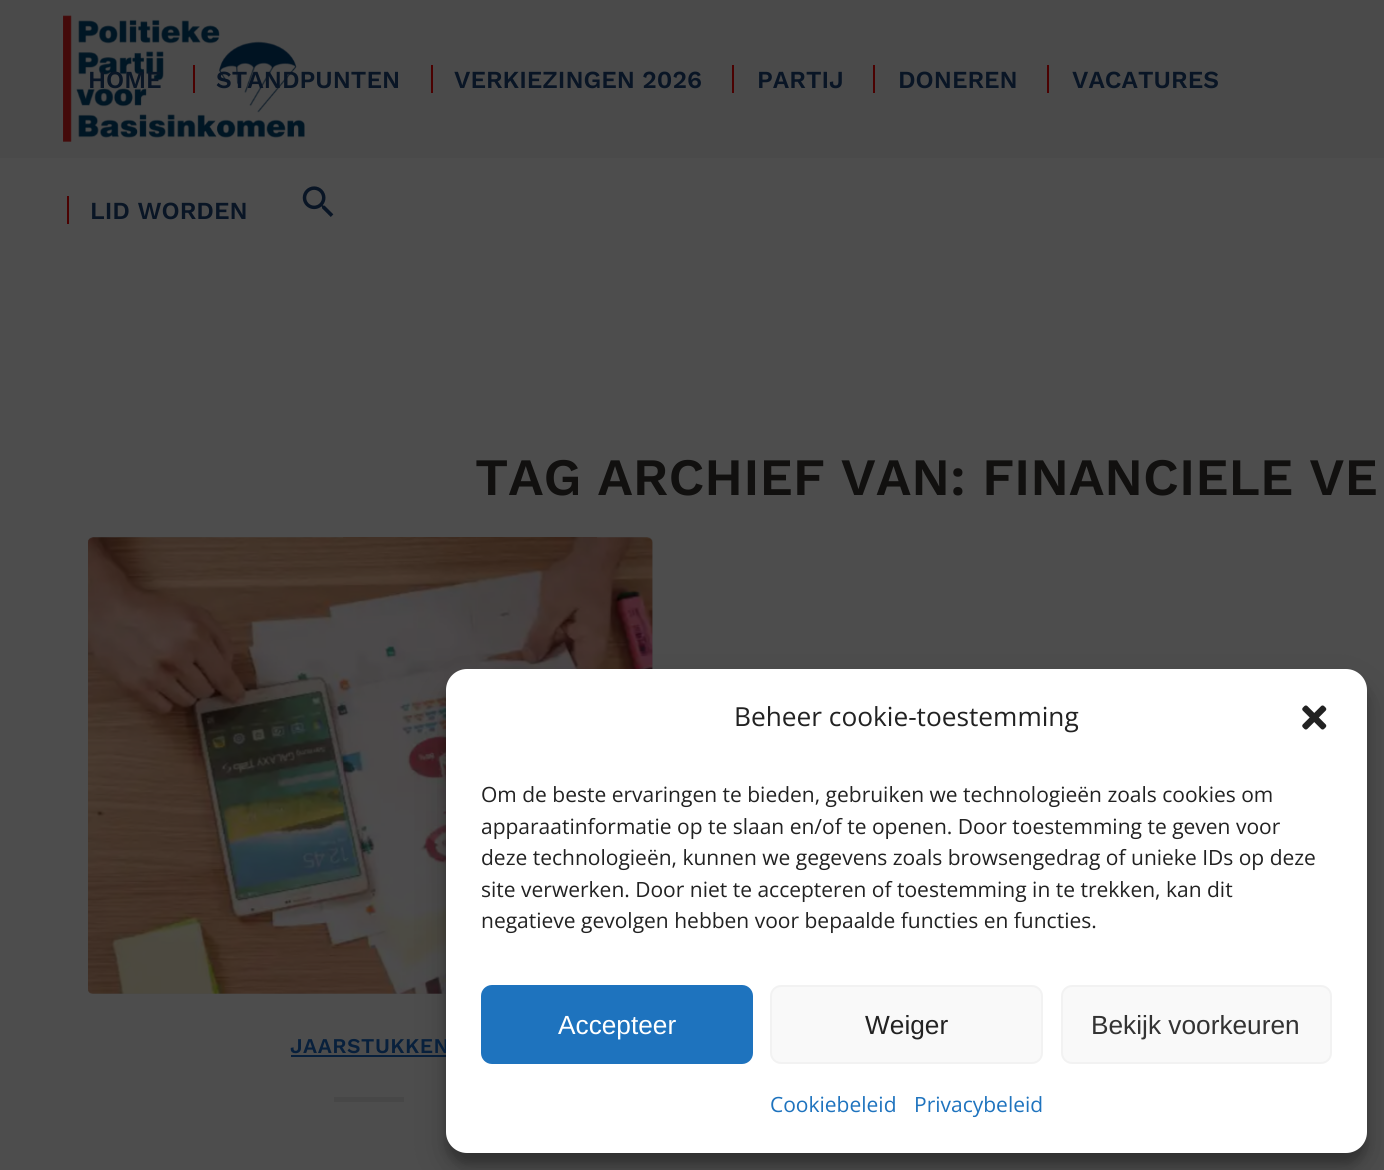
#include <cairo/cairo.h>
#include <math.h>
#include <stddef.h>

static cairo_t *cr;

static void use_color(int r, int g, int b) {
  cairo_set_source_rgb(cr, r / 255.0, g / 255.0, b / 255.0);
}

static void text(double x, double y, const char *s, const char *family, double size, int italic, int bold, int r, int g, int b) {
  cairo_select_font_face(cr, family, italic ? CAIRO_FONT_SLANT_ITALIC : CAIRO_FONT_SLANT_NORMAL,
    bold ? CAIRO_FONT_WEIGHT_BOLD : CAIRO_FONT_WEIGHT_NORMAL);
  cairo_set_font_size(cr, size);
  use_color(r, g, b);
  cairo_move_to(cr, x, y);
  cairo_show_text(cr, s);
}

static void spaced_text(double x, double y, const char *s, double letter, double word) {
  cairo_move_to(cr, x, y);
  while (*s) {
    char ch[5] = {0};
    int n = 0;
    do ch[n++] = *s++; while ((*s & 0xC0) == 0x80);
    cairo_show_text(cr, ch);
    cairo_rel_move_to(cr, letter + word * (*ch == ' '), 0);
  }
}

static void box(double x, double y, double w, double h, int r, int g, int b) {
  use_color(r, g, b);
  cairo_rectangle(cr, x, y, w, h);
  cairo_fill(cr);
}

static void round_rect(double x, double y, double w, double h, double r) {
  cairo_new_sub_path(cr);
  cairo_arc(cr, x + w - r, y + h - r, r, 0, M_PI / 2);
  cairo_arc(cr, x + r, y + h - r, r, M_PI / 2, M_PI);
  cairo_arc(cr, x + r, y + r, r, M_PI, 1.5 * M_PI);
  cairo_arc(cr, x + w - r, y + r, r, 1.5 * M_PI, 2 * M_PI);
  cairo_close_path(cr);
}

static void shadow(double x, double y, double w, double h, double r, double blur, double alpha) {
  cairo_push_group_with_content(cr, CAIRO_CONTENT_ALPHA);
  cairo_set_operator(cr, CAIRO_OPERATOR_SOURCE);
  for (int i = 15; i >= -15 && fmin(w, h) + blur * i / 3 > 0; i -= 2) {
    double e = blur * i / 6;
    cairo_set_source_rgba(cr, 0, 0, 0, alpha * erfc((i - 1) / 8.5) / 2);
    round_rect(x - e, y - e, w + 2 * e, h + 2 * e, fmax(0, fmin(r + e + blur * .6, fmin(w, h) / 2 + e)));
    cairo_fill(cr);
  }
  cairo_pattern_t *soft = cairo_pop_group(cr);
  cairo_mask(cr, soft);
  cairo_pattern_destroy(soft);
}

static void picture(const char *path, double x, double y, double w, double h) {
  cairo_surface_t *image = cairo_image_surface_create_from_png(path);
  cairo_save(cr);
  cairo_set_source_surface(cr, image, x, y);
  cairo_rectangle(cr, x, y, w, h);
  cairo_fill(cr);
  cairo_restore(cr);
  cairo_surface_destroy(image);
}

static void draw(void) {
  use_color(77, 77, 77);
  cairo_paint(cr);
  box(0, 0, 1384, 158, 74, 74, 74);
  picture("img_01.png", 63, 15, 242, 127);
  box(193, 65, 2, 28, 75, 1, 1);
  box(431, 65, 2, 28, 75, 1, 1);
  box(732, 65, 2, 28, 75, 1, 1);
  box(873, 65, 2, 28, 75, 1, 1);
  box(1047, 65, 2, 28, 75, 1, 1);
  box(67, 196, 2, 28, 75, 1, 1);
  picture("img_02.png", 302, 186, 32, 31);
  use_color(74, 74, 74);
  round_rect(88, 537, 565, 457, 5);
  cairo_fill(cr);
  picture("img_03.png", 88, 537, 565, 457);
  box(291, 1055, 159, 2, 8, 32, 60);
  box(334, 1097, 70, 5, 71, 71, 71);
  use_color(0, 0, 0);
  shadow(446, 679, 921, 485, 21, 5, 0.23);
  shadow(446, 686, 921, 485, 21, 17.5, 0.19);
  text(88, 88, "HOME", "Work Sans SemiBold", 24.5, 0, 0, 9, 21, 37);
  text(216, 88, "STANDPUNTEN", "Work Sans SemiBold", 24.5, 0, 0, 9, 21, 37);
  text(454, 88, "VERKIEZINGEN 2026", "Work Sans SemiBold", 24.5, 0, 0, 9, 21, 37);
  text(757, 88, "PARTIJ", "Work Sans SemiBold", 24.5, 0, 0, 9, 21, 37);
  text(898, 88, "DONEREN", "Work Sans SemiBold", 24.5, 0, 0, 9, 21, 37);
  text(1072, 88, "VACATURES", "Work Sans SemiBold", 24.5, 0, 0, 9, 21, 37);
  text(90, 219, "LID WORDEN", "Work Sans SemiBold", 24.5, 0, 0, 9, 21, 37);
  text(475, 495, "TAG ARCHIEF VAN: FINANCIELE VE", "Work Sans SemiBold", 52.5, 0, 0, 17, 16, 15);
  cairo_set_font_size(cr, 21);
  use_color(8, 32, 60);
  spaced_text(290, 1053, "JAARSTUKKEN", 0.5, 0);
  use_color(255, 255, 255);
  round_rect(446, 669, 921, 484, 21);
  cairo_fill(cr);
  text(734, 726, "Beheer cookie-toestemming", "Open Sans", 26.25, 0, 0, 34, 34, 34);
  picture("img_04.png", 1302, 705, 25, 25);
  text(481, 802, "Om de beste ervaringen te bieden, gebruiken we technologieën zoals cookies om", "Open Sans", 21, 0, 0, 34, 34, 34);
  text(481, 834, "apparaatinformatie op te slaan en/of te openen. Door toestemming te geven voor", "Open Sans", 21, 0, 0, 34, 34, 34);
  text(481, 865, "deze technologieën, kunnen we gegevens zoals browsengedrag of unieke IDs op deze", "Open Sans", 21, 0, 0, 34, 34, 34);
  text(481, 897, "site verwerken. Door niet te accepteren of toestemming in te trekken, kan dit", "Open Sans", 21, 0, 0, 34, 34, 34);
  text(481, 928, "negatieve gevolgen hebben voor bepaalde functies en functies.", "Open Sans", 21, 0, 0, 34, 34, 34);
  use_color(30, 115, 190);
  round_rect(482, 986, 270, 77, 10);
  cairo_fill_preserve(cr);
  cairo_stroke(cr);
  text(558, 1034, "Accepteer", "Liberation Sans", 26.25, 0, 0, 255, 255, 255);
  use_color(249, 249, 249);
  round_rect(771, 986, 271, 77, 10);
  cairo_fill_preserve(cr);
  use_color(242, 242, 242);
  cairo_stroke(cr);
  text(865, 1034, "Weiger", "Liberation Sans", 26.25, 0, 0, 34, 34, 34);
  use_color(249, 249, 249);
  round_rect(1062, 986, 269, 77, 10);
  cairo_fill_preserve(cr);
  use_color(242, 242, 242);
  cairo_stroke(cr);
  text(1091, 1034, "Bekijk voorkeuren", "Liberation Sans", 26.25, 0, 0, 51, 51, 51);
  text(770, 1112, "Cookiebeleid", "Open Sans", 21, 0, 0, 30, 115, 190);
  text(914, 1112, "Privacybeleid", "Open Sans", 21, 0, 0, 30, 115, 190);
}

int main(void) {
  cairo_surface_t *surface = cairo_image_surface_create(CAIRO_FORMAT_RGB24, 1384, 1170);
  cr = cairo_create(surface);
  cairo_font_options_t *options = cairo_font_options_create();
  cairo_font_options_set_hint_metrics(options, CAIRO_HINT_METRICS_OFF);
  cairo_font_options_set_hint_style(options, CAIRO_HINT_STYLE_NONE);
  cairo_set_font_options(cr, options);
  cairo_set_miter_limit(cr, 4);
  draw();
  cairo_surface_write_to_png(surface, "out.png");
  cairo_font_options_destroy(options);
  cairo_destroy(cr);
  cairo_surface_destroy(surface);
  return 0;
}
